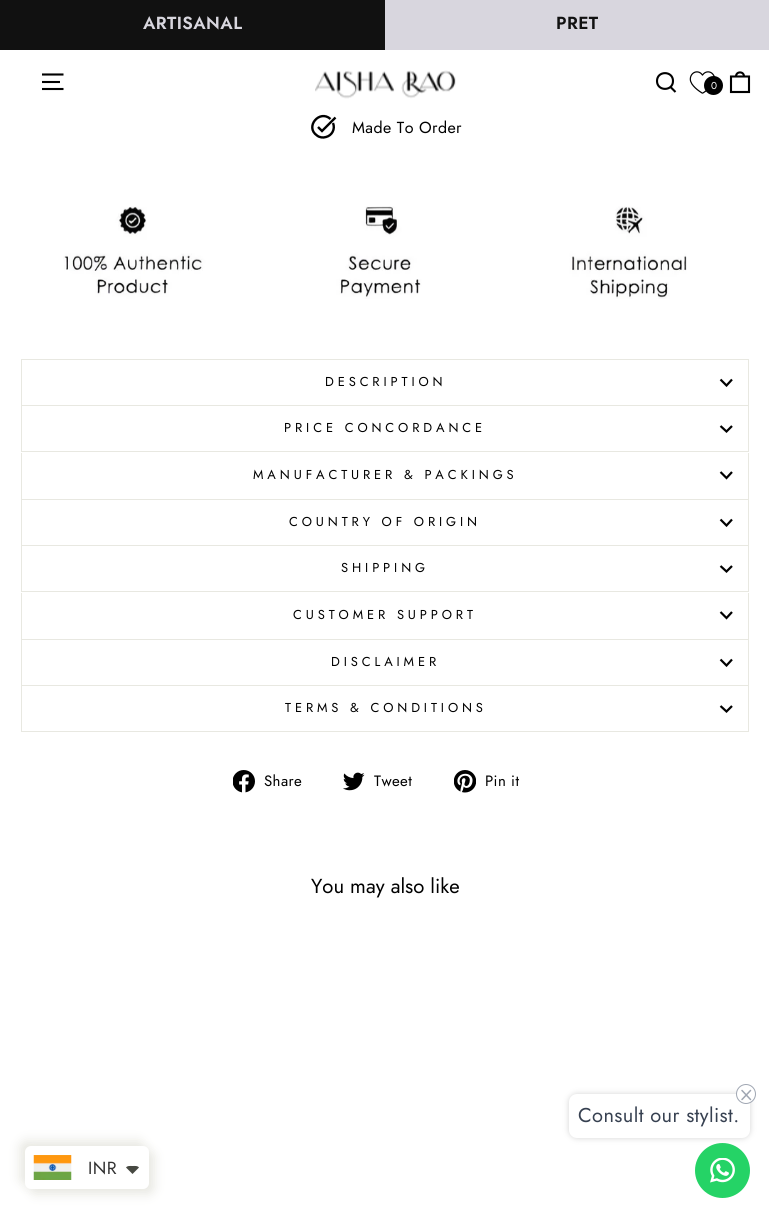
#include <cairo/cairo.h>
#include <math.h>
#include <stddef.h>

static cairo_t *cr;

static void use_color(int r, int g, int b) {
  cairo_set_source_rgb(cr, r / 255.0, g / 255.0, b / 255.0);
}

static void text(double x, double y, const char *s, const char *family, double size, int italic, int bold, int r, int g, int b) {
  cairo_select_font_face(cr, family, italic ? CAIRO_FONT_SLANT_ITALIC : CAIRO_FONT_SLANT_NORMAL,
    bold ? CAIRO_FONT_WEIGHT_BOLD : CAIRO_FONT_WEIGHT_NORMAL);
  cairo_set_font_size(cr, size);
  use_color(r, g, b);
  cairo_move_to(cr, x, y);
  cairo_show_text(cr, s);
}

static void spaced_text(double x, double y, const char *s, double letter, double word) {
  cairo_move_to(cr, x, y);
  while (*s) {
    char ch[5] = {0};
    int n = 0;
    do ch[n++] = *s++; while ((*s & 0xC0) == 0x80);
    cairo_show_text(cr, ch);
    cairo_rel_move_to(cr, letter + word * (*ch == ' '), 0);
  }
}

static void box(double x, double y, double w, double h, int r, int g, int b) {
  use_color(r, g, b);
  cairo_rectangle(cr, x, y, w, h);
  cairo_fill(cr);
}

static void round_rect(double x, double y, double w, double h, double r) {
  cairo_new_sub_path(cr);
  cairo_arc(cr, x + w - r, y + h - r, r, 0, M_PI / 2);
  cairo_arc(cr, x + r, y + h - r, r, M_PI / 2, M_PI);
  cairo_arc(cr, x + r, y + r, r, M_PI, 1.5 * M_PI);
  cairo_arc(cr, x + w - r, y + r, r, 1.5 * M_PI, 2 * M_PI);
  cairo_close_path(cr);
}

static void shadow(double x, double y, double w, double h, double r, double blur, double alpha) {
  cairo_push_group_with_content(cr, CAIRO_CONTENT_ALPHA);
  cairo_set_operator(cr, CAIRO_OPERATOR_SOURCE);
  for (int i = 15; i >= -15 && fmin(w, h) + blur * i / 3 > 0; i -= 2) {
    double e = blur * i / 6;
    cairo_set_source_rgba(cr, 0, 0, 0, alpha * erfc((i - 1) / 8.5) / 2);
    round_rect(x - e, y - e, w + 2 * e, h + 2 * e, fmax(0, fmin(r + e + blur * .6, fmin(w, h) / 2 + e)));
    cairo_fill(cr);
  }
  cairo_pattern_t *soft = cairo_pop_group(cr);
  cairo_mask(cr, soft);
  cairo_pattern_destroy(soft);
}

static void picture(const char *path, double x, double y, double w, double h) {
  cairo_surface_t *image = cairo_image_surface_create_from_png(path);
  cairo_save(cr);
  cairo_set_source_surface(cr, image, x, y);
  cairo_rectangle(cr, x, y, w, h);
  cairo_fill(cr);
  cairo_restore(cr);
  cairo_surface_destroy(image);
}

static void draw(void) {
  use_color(255, 255, 255);
  cairo_paint(cr);
  box(0, 0, 385, 50, 17, 17, 17);
  box(385, 0, 384, 50, 216, 214, 222);
  cairo_new_path(cr);
  cairo_move_to(cr, 42, 74.5);
  cairo_line_to(cr, 63.5, 74.5);
  cairo_move_to(cr, 42, 82);
  cairo_line_to(cr, 60, 82);
  cairo_move_to(cr, 42, 89);
  cairo_line_to(cr, 63.5, 89);
  use_color(0, 0, 0);
  cairo_set_line_width(cr, 2.1);
  cairo_stroke(cr);
  picture("img_01.png", 315, 70, 141, 29);
  cairo_new_path(cr);
  cairo_move_to(cr, 673, 81);
  cairo_curve_to(cr, 673, 91.5, 657, 91.5, 657, 81);
  cairo_curve_to(cr, 657, 70.5, 673, 70.5, 673, 81);
  cairo_close_path(cr);
  cairo_move_to(cr, 675.5, 92);
  cairo_line_to(cr, 670.5, 87);
  cairo_stroke(cr);
  picture("img_02.png", 689, 71, 26, 23);
  cairo_arc(cr, 713.5, 85.5, 9.5, 0, 2 * M_PI);
  cairo_fill(cr);
  cairo_new_path(cr);
  cairo_move_to(cr, 731, 76.5);
  cairo_line_to(cr, 749, 76.5);
  cairo_line_to(cr, 749, 92);
  cairo_line_to(cr, 731, 92);
  cairo_close_path(cr);
  cairo_move_to(cr, 736, 76.5);
  cairo_curve_to(cr, 736, 71, 744, 71, 744, 76.5);
  cairo_stroke(cr);
  cairo_new_path(cr);
  cairo_move_to(cr, 333, 123);
  cairo_curve_to(cr, 335.5, 129, 332, 135.5, 326, 137);
  cairo_curve_to(cr, 323, 138, 319.5, 137.5, 317, 135.5);
  cairo_curve_to(cr, 304.5, 127, 319.5, 109, 330.5, 119);
  cairo_move_to(cr, 318, 127);
  cairo_line_to(cr, 322, 131);
  cairo_line_to(cr, 335.5, 117.5);
  cairo_set_line_width(cr, 2.4);
  cairo_stroke(cr);
  picture("img_03.png", 63, 206, 624, 93);
  box(21, 405, 728, 1, 232, 232, 225);
  box(21, 359, 728, 1, 232, 232, 225);
  box(748, 359, 1, 46, 232, 232, 225);
  box(21, 359, 1, 46, 232, 232, 225);
  cairo_new_path(cr);
  cairo_move_to(cr, 720.5, 379.5);
  cairo_line_to(cr, 726.5, 385.5);
  cairo_line_to(cr, 732, 379.5);
  use_color(0, 0, 0);
  cairo_set_line_width(cr, 2.2);
  cairo_stroke(cr);
  box(21, 451, 728, 1, 232, 232, 225);
  box(748, 406, 1, 45, 232, 232, 225);
  box(21, 406, 1, 45, 232, 232, 225);
  cairo_new_path(cr);
  cairo_move_to(cr, 720.5, 426);
  cairo_line_to(cr, 726.5, 431.5);
  cairo_line_to(cr, 732, 426);
  use_color(0, 0, 0);
  cairo_stroke(cr);
  box(21, 499, 728, 1, 232, 232, 225);
  box(748, 453, 1, 46, 232, 232, 225);
  box(21, 453, 1, 46, 232, 232, 225);
  cairo_new_path(cr);
  cairo_move_to(cr, 720.5, 472);
  cairo_line_to(cr, 726.5, 478);
  cairo_line_to(cr, 732, 472);
  use_color(0, 0, 0);
  cairo_stroke(cr);
  box(21, 545, 728, 1, 232, 232, 225);
  box(748, 500, 1, 45, 232, 232, 225);
  box(21, 500, 1, 45, 232, 232, 225);
  cairo_new_path(cr);
  cairo_move_to(cr, 720.5, 519.5);
  cairo_line_to(cr, 726.5, 525.5);
  cairo_line_to(cr, 732, 519.5);
  use_color(0, 0, 0);
  cairo_stroke(cr);
  box(21, 591, 728, 1, 232, 232, 225);
  box(748, 546, 1, 45, 232, 232, 225);
  box(21, 546, 1, 45, 232, 232, 225);
  cairo_new_path(cr);
  cairo_move_to(cr, 720.5, 566);
  cairo_line_to(cr, 726.5, 571.5);
  cairo_line_to(cr, 732, 566);
  use_color(0, 0, 0);
  cairo_stroke(cr);
  box(21, 639, 728, 1, 232, 232, 225);
  box(748, 593, 1, 46, 232, 232, 225);
  box(21, 593, 1, 46, 232, 232, 225);
  cairo_new_path(cr);
  cairo_move_to(cr, 720.5, 612);
  cairo_line_to(cr, 726.5, 618);
  cairo_line_to(cr, 732, 612);
  use_color(0, 0, 0);
  cairo_stroke(cr);
  box(21, 685, 728, 1, 232, 232, 225);
  box(748, 640, 1, 45, 232, 232, 225);
  box(21, 640, 1, 45, 232, 232, 225);
  cairo_new_path(cr);
  cairo_move_to(cr, 720.5, 659.5);
  cairo_line_to(cr, 726.5, 665.5);
  cairo_line_to(cr, 732, 659.5);
  use_color(0, 0, 0);
  cairo_stroke(cr);
  box(21, 731, 728, 1, 232, 232, 225);
  box(748, 686, 1, 45, 232, 232, 225);
  box(21, 686, 1, 45, 232, 232, 225);
  cairo_new_path(cr);
  cairo_move_to(cr, 720.5, 706);
  cairo_line_to(cr, 726.5, 711.5);
  cairo_line_to(cr, 732, 706);
  use_color(0, 0, 0);
  cairo_stroke(cr);
  picture("img_04.png", 233, 770, 22, 23);
  picture("img_05.png", 343, 772, 22, 19);
  picture("img_06.png", 454, 770, 22, 23);
  use_color(37, 211, 102);
  cairo_arc(cr, 722.5, 1170.5, 27.5, 0, 2 * M_PI);
  cairo_fill(cr);
  use_color(211, 211, 211);
  shadow(569, 1094, 181, 44, 8, 3, 1);
  use_color(255, 255, 255);
  round_rect(569, 1094, 181, 44, 8);
  cairo_fill(cr);
  cairo_arc(cr, 746, 1094, 9.5, 0, 2 * M_PI);
  cairo_fill_preserve(cr);
  use_color(159, 166, 178);
  cairo_set_line_width(cr, 1);
  cairo_stroke(cr);
  cairo_new_path(cr);
  cairo_move_to(cr, 742, 1099.5);
  cairo_line_to(cr, 750.5, 1090.5);
  cairo_move_to(cr, 742, 1090.5);
  cairo_line_to(cr, 750.5, 1099.5);
  cairo_set_line_width(cr, 1.5);
  cairo_set_line_cap(cr, CAIRO_LINE_CAP_ROUND);
  cairo_set_line_join(cr, CAIRO_LINE_JOIN_ROUND);
  cairo_stroke(cr);
  use_color(232, 232, 226);
  shadow(20, 1141, 124, 43, 6, 5.5, 1);
  shadow(30, 1151, 124, 43, 6, 5.5, 1);
  use_color(255, 255, 255);
  round_rect(25, 1146, 124, 43, 6);
  cairo_fill(cr);
  picture("img_07.png", 33, 1155, 39, 25);
  use_color(71, 73, 66);
  cairo_new_path(cr);
  cairo_move_to(cr, 126, 1167.5);
  cairo_curve_to(cr, 127.5, 1165.5, 130.5, 1166, 132.5, 1166);
  cairo_curve_to(cr, 134.5, 1166, 137.5, 1165.5, 139, 1167.5);
  cairo_line_to(cr, 132.5, 1174);
  cairo_close_path(cr);
  cairo_fill(cr);
  picture("img_08.png", 710, 1158, 25, 25);
  cairo_select_font_face(cr, "Jost SemiBold", CAIRO_FONT_SLANT_NORMAL, CAIRO_FONT_WEIGHT_NORMAL);
  cairo_set_font_size(cr, 17.5);
  use_color(216, 214, 222);
  spaced_text(143, 29, "ARTISANAL", 0.4, 0);
  use_color(17, 17, 17);
  spaced_text(556, 29, "PRET", 0.4, 0);
  cairo_select_font_face(cr, "Jost", CAIRO_FONT_SLANT_NORMAL, CAIRO_FONT_WEIGHT_NORMAL);
  cairo_set_font_size(cr, 10);
  use_color(255, 255, 255);
  spaced_text(711, 89, "0", 0.4, 0);
  cairo_set_font_size(cr, 16);
  use_color(0, 0, 0);
  spaced_text(352, 133, "Made To Order", 0.4, 0);
  cairo_set_font_size(cr, 12.9);
  spaced_text(325, 386, "DESCRIPTION", 3.9, 0);
  spaced_text(284, 432, "PRICE CONCORDANCE", 3.9, 0);
  spaced_text(253, 479, "MANUFACTURER & PACKINGS", 3.9, 0);
  spaced_text(289, 526, "COUNTRY OF ORIGIN", 3.9, 0);
  spaced_text(341, 572, "SHIPPING", 3.9, 0);
  spaced_text(293, 619, "CUSTOMER SUPPORT", 3.9, 0);
  spaced_text(331, 666, "DISCLAIMER", 3.9, 0);
  spaced_text(285, 712, "TERMS & CONDITIONS", 3.9, 0);
  cairo_set_font_size(cr, 15);
  spaced_text(264, 786, "Share", 0.4, 0);
  spaced_text(374, 786, "Tweet", 0.4, 0);
  spaced_text(485, 786, "Pin it", 0.4, 0);
  text(311, 893, "You may also like", "Jost", 20.25, 0, 0, 0, 0, 0);
  cairo_set_font_size(cr, 20);
  use_color(55, 65, 81);
  spaced_text(578, 1122, "Consult our stylist.", 0.4, 0);
  cairo_set_font_size(cr, 17.5);
  use_color(51, 51, 51);
  spaced_text(88, 1174, "INR", 0.4, 0);
}

int main(void) {
  cairo_surface_t *surface = cairo_image_surface_create(CAIRO_FORMAT_RGB24, 769, 1217);
  cr = cairo_create(surface);
  cairo_font_options_t *options = cairo_font_options_create();
  cairo_font_options_set_hint_metrics(options, CAIRO_HINT_METRICS_OFF);
  cairo_font_options_set_hint_style(options, CAIRO_HINT_STYLE_NONE);
  cairo_set_font_options(cr, options);
  cairo_set_miter_limit(cr, 4);
  draw();
  cairo_surface_write_to_png(surface, "out.png");
  cairo_font_options_destroy(options);
  cairo_destroy(cr);
  cairo_surface_destroy(surface);
  return 0;
}
